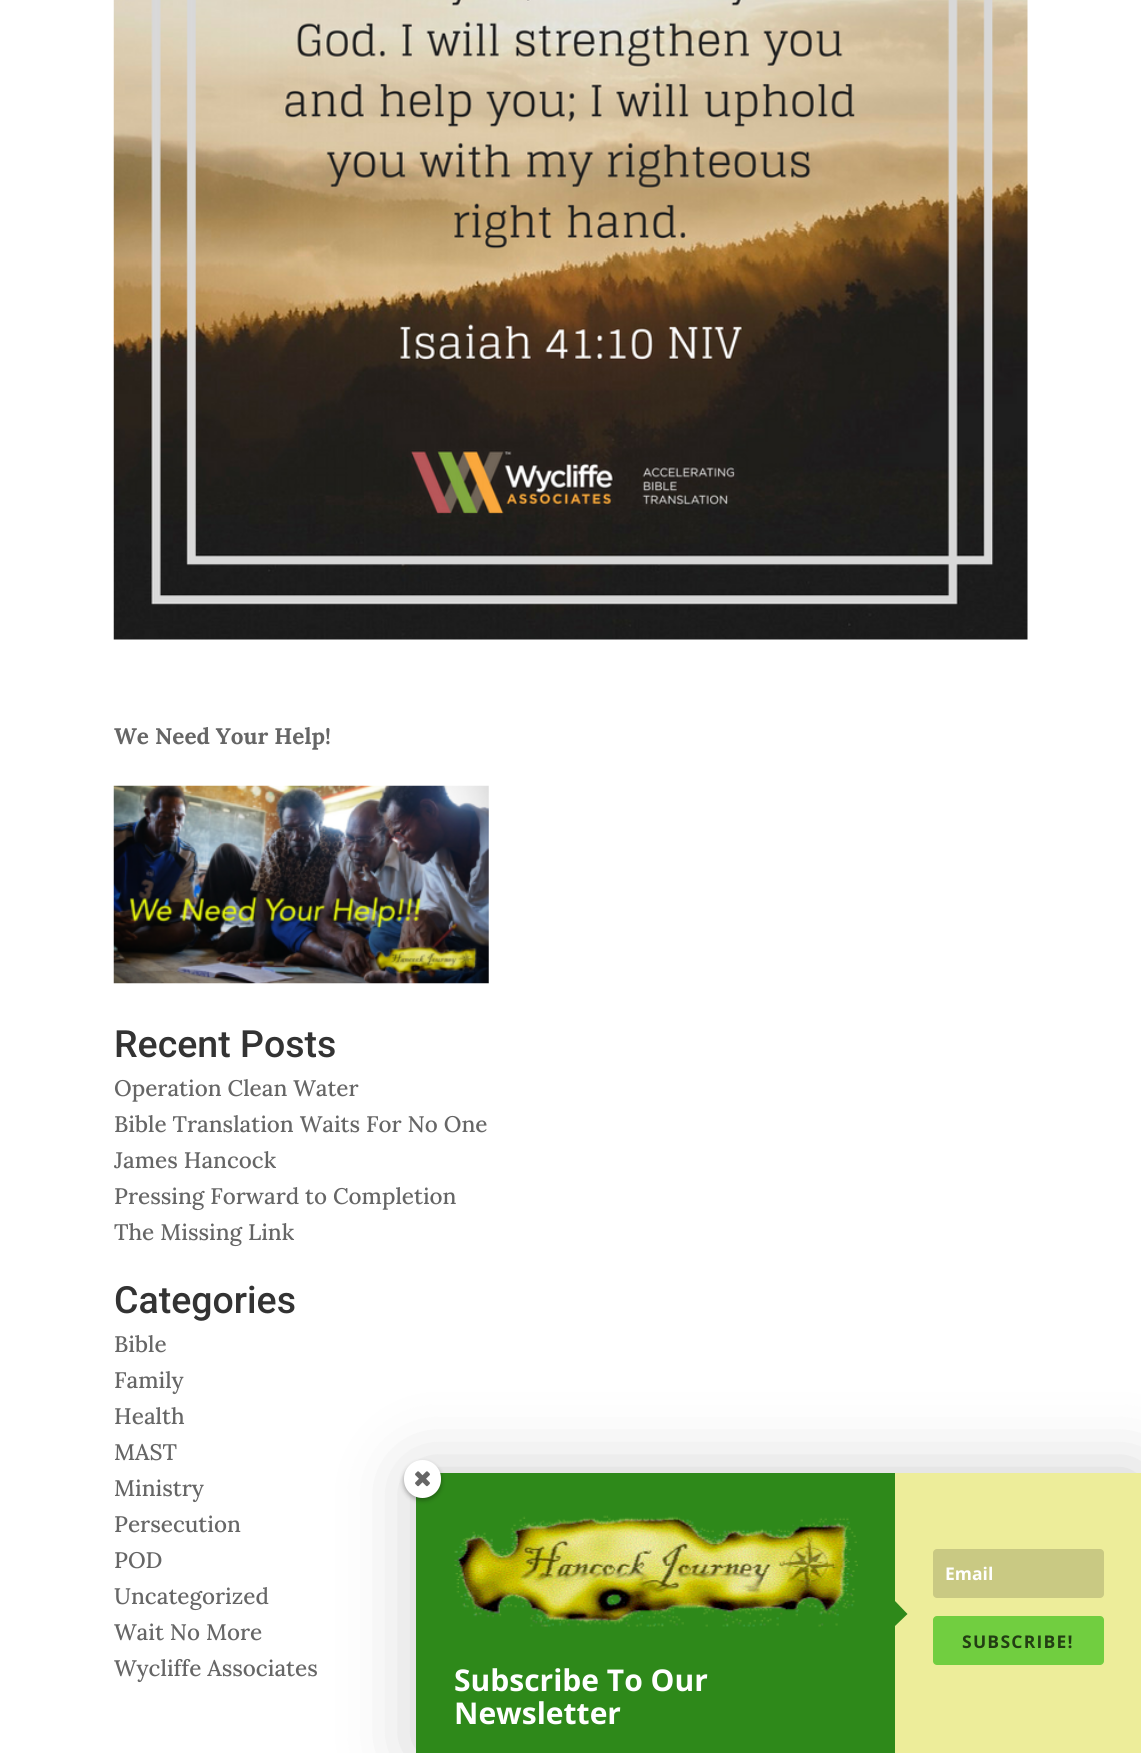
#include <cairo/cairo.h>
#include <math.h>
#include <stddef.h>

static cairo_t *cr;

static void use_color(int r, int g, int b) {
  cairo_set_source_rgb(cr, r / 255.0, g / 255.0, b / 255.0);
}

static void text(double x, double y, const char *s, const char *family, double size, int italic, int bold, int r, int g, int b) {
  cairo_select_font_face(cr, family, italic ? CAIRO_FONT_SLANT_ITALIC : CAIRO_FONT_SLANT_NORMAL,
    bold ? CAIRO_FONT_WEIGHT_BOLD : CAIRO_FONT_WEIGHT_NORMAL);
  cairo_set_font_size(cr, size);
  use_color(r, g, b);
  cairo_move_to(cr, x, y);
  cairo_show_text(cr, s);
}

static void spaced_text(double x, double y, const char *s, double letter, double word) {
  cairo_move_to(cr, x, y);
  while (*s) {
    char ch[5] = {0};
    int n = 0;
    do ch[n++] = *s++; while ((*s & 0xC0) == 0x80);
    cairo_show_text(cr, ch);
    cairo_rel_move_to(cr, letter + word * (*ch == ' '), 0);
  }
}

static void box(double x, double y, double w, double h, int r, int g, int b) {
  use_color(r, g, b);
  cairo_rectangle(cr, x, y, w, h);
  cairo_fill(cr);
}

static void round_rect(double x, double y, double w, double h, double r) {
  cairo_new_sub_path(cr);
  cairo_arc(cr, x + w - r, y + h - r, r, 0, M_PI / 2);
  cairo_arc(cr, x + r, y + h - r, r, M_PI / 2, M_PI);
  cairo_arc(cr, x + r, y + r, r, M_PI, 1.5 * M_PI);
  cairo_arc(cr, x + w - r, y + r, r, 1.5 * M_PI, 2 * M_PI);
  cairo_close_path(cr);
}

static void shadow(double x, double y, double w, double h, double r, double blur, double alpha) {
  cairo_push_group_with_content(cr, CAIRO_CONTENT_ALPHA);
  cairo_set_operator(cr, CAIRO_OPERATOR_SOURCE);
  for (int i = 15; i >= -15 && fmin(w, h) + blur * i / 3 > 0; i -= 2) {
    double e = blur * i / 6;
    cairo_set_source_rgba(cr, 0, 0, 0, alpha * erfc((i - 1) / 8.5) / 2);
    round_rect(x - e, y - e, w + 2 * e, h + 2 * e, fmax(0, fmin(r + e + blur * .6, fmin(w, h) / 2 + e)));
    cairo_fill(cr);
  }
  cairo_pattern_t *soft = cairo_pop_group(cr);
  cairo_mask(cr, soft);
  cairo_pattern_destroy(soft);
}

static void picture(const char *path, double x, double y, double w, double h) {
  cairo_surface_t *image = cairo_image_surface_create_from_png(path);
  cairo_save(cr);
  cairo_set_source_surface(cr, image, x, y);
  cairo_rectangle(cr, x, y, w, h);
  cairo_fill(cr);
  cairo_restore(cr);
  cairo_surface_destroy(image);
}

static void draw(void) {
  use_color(255, 255, 255);
  cairo_paint(cr);
  picture("img_01.png", 113, 0, 915, 640);
  picture("img_02.png", 113, 785, 376, 199);
  use_color(0, 0, 0);
  shadow(416, 1473, 725, 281, 0, 37.5, 0.2);
  box(416, 1473, 479, 280, 46, 137, 26);
  use_color(0, 0, 0);
  shadow(404, 1463, 37, 37, 18.5, 2.5, 0.34);
  use_color(255, 255, 255);
  round_rect(404, 1460, 37, 38, 18.5);
  cairo_fill(cr);
  picture("img_03.png", 415, 1471, 15, 16);
  box(895, 1473, 246, 280, 237, 237, 154);
  use_color(46, 137, 26);
  cairo_new_path(cr);
  cairo_move_to(cr, 895, 1626);
  cairo_line_to(cr, 895, 1601);
  cairo_line_to(cr, 907.5, 1614);
  cairo_close_path(cr);
  cairo_fill(cr);
  use_color(201, 201, 131);
  round_rect(933, 1549, 171, 49, 4);
  cairo_fill(cr);
  use_color(113, 206, 64);
  round_rect(933, 1616, 171, 49, 4);
  cairo_fill(cr);
  picture("img_04.png", 454, 1515, 404, 112);
  text(114, 744, "We Need Your Help!", "Lora", 22.5, 0, 1, 102, 102, 102);
  text(114, 1057, "Recent Posts", "Roboto Medium", 37.5, 0, 0, 51, 51, 51);
  text(114, 1096, "Operation Clean Water", "Lora Medium", 22.5, 0, 0, 102, 102, 102);
  text(114, 1132, "Bible Translation Waits For No One", "Lora Medium", 22.5, 0, 0, 102, 102, 102);
  text(114, 1168, "James Hancock", "Lora Medium", 22.5, 0, 0, 102, 102, 102);
  text(114, 1204, "Pressing Forward to Completion", "Lora Medium", 22.5, 0, 0, 102, 102, 102);
  text(114, 1240, "The Missing Link", "Lora Medium", 22.5, 0, 0, 102, 102, 102);
  text(114, 1313, "Categories", "Roboto Medium", 37.5, 0, 0, 51, 51, 51);
  text(114, 1352, "Bible", "Lora Medium", 22.5, 0, 0, 102, 102, 102);
  text(114, 1388, "Family", "Lora Medium", 22.5, 0, 0, 102, 102, 102);
  text(114, 1424, "Health", "Lora Medium", 22.5, 0, 0, 102, 102, 102);
  text(114, 1460, "MAST", "Lora Medium", 22.5, 0, 0, 102, 102, 102);
  text(114, 1496, "Ministry", "Lora Medium", 22.5, 0, 0, 102, 102, 102);
  text(114, 1532, "Persecution", "Lora Medium", 22.5, 0, 0, 102, 102, 102);
  text(114, 1568, "POD", "Lora Medium", 22.5, 0, 0, 102, 102, 102);
  text(114, 1604, "Uncategorized", "Lora Medium", 22.5, 0, 0, 102, 102, 102);
  text(114, 1640, "Wait No More", "Lora Medium", 22.5, 0, 0, 102, 102, 102);
  text(114, 1676, "Wycliffe Associates", "Lora Medium", 22.5, 0, 0, 102, 102, 102);
  text(945, 1580, "Email", "Open Sans", 17.5, 0, 1, 255, 255, 255);
  use_color(34, 62, 19);
  spaced_text(962, 1648, "SUBSCRIBE!", 1.25, 0);
  text(454, 1691, "Subscribe To Our", "Open Sans", 30, 0, 1, 255, 255, 255);
  text(454, 1724, "Newsletter", "Open Sans", 30, 0, 1, 255, 255, 255);
}

int main(void) {
  cairo_surface_t *surface = cairo_image_surface_create(CAIRO_FORMAT_RGB24, 1141, 1753);
  cr = cairo_create(surface);
  cairo_font_options_t *options = cairo_font_options_create();
  cairo_font_options_set_hint_metrics(options, CAIRO_HINT_METRICS_OFF);
  cairo_font_options_set_hint_style(options, CAIRO_HINT_STYLE_NONE);
  cairo_set_font_options(cr, options);
  cairo_set_miter_limit(cr, 4);
  draw();
  cairo_surface_write_to_png(surface, "out.png");
  cairo_font_options_destroy(options);
  cairo_destroy(cr);
  cairo_surface_destroy(surface);
  return 0;
}
